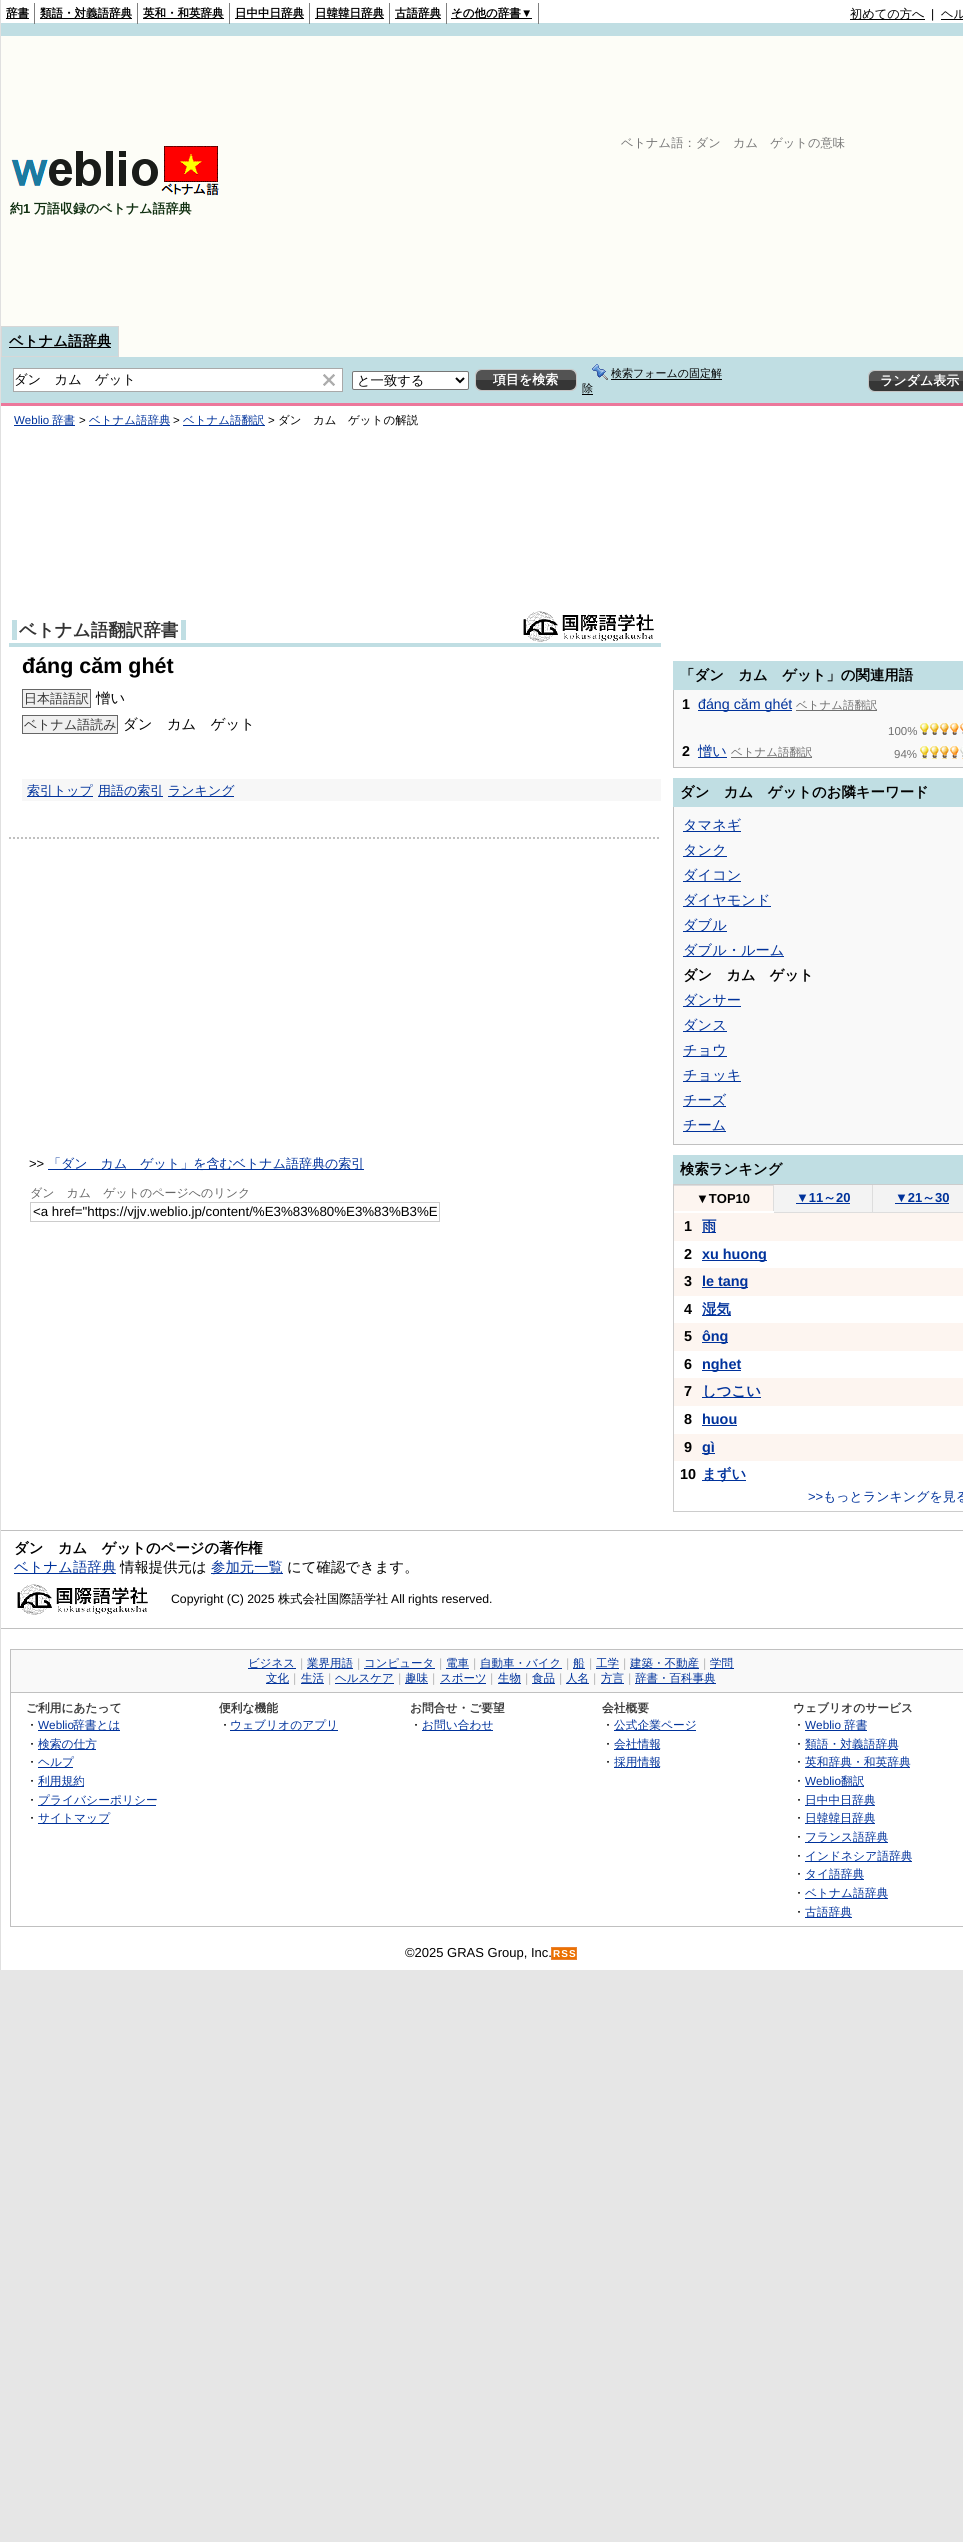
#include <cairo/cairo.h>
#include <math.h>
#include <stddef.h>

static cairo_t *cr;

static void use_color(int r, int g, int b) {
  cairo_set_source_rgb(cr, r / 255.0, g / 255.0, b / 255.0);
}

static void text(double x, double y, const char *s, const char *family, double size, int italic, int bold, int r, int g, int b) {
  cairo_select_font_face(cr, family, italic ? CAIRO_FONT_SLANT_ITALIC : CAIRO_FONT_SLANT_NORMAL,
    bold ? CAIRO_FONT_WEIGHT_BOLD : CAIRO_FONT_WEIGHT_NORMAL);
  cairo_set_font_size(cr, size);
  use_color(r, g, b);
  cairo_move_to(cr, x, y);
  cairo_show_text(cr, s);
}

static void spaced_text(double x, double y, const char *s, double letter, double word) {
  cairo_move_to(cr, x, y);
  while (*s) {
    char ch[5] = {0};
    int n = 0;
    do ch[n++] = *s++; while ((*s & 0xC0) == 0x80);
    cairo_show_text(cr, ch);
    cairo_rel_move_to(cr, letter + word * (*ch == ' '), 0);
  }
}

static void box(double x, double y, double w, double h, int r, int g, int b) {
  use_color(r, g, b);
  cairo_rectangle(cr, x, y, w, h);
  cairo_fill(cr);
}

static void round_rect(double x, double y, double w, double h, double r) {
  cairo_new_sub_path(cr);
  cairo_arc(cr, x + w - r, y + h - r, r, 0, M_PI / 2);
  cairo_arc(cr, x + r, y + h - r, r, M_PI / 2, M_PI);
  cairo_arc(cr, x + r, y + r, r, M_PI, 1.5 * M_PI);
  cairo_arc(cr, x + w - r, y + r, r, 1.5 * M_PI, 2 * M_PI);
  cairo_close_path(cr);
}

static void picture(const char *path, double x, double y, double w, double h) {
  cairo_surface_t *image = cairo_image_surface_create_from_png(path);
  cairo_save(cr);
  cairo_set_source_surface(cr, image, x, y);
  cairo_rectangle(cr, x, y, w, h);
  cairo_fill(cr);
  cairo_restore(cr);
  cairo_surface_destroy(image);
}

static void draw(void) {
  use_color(230, 230, 230);
  cairo_paint(cr);
  box(1, 0, 962, 1970, 255, 255, 255);
  box(0, 0, 1, 1970, 224, 224, 224);
  box(1, 23, 962, 13, 192, 222, 227);
  box(34, 3, 1, 21, 127, 127, 127);
  box(6, 18, 23, 1, 0, 0, 0);
  box(137, 3, 1, 21, 127, 127, 127);
  box(40, 18, 92, 1, 0, 0, 0);
  box(229, 3, 1, 21, 127, 127, 127);
  box(143, 18, 81, 1, 0, 0, 0);
  box(309, 3, 1, 21, 127, 127, 127);
  box(235, 18, 69, 1, 0, 0, 0);
  box(389, 3, 1, 21, 127, 127, 127);
  box(315, 18, 69, 1, 0, 0, 0);
  box(446, 3, 1, 21, 127, 127, 127);
  box(395, 18, 46, 1, 0, 0, 0);
  box(538, 3, 1, 21, 127, 127, 127);
  box(451, 18, 81, 1, 0, 0, 0);
  box(850, 19, 75, 1, 0, 0, 0);
  box(941, 19, 22, 1, 0, 0, 0);
  box(1, 36, 962, 290, 253, 253, 247);
  picture("img_01.png", 11, 146, 208, 50);
  box(119, 326, 844, 31, 253, 253, 247);
  use_color(192, 222, 227);
  cairo_rectangle(cr, 1.5, 326.5, 117, 30);
  cairo_fill_preserve(cr);
  use_color(215, 215, 215);
  cairo_set_line_width(cr, 1);
  cairo_stroke(cr);
  box(9, 347, 102, 1, 0, 0, 0);
  box(1, 357, 962, 46, 192, 222, 227);
  box(1, 403, 962, 3, 236, 119, 155);
  box(14, 369, 328, 22, 255, 255, 255);
  box(13, 368, 330, 1, 169, 169, 169);
  box(342, 368, 1, 24, 169, 169, 169);
  box(13, 391, 330, 1, 169, 169, 169);
  box(13, 368, 1, 24, 169, 169, 169);
  picture("img_02.png", 323, 374, 12, 12);
  use_color(255, 255, 255);
  round_rect(352.5, 371.5, 116, 18, 1.5);
  cairo_fill_preserve(cr);
  use_color(118, 118, 118);
  cairo_stroke(cr);
  cairo_new_path(cr);
  cairo_move_to(cr, 456, 378);
  cairo_line_to(cr, 460, 382);
  cairo_line_to(cr, 464, 378);
  use_color(0, 0, 0);
  cairo_set_line_width(cr, 2);
  cairo_stroke(cr);
  use_color(232, 232, 232);
  round_rect(475.5, 369.5, 101, 21, 5.5);
  cairo_fill_preserve(cr);
  use_color(197, 197, 197);
  cairo_set_line_width(cr, 1);
  cairo_stroke(cr);
  use_color(83, 83, 83);
  cairo_new_path(cr);
  cairo_move_to(cr, 482, 370);
  cairo_line_to(cr, 570, 370);
  cairo_curve_to(cr, 573.5, 370, 576, 372.5, 576, 376);
  cairo_line_to(cr, 576, 380);
  cairo_line_to(cr, 476, 380);
  cairo_line_to(cr, 476, 376);
  cairo_curve_to(cr, 476, 372.5, 478.5, 370, 482, 370);
  cairo_close_path(cr);
  cairo_fill(cr);
  use_color(54, 54, 54);
  cairo_new_path(cr);
  cairo_move_to(cr, 476, 380);
  cairo_line_to(cr, 576, 380);
  cairo_line_to(cr, 576, 384);
  cairo_curve_to(cr, 576, 387.5, 573.5, 390, 570, 390);
  cairo_line_to(cr, 482, 390);
  cairo_curve_to(cr, 478.5, 390, 476, 387.5, 476, 384);
  cairo_close_path(cr);
  cairo_fill(cr);
  picture("img_03.png", 592, 364, 16, 16);
  box(611, 379, 111, 1, 0, 0, 0);
  box(582, 394, 11, 1, 0, 0, 0);
  round_rect(868.5, 370.5, 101, 21, 5.5);
  use_color(197, 197, 197);
  cairo_stroke(cr);
  use_color(83, 83, 83);
  cairo_new_path(cr);
  cairo_move_to(cr, 875, 371);
  cairo_line_to(cr, 963, 371);
  cairo_curve_to(cr, 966.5, 371, 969, 373.5, 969, 377);
  cairo_line_to(cr, 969, 381);
  cairo_line_to(cr, 869, 381);
  cairo_line_to(cr, 869, 377);
  cairo_curve_to(cr, 869, 373.5, 871.5, 371, 875, 371);
  cairo_close_path(cr);
  cairo_fill(cr);
  use_color(54, 54, 54);
  cairo_new_path(cr);
  cairo_move_to(cr, 869, 381);
  cairo_line_to(cr, 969, 381);
  cairo_line_to(cr, 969, 385);
  cairo_curve_to(cr, 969, 388.5, 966.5, 391, 963, 391);
  cairo_line_to(cr, 875, 391);
  cairo_curve_to(cr, 871.5, 391, 869, 388.5, 869, 385);
  cairo_close_path(cr);
  cairo_fill(cr);
  box(14, 425, 61, 1, 0, 50, 155);
  box(89, 425, 81, 1, 0, 50, 155);
  box(183, 425, 82, 1, 0, 50, 155);
  box(9, 643, 652, 4, 192, 222, 227);
  box(181, 620, 5, 20, 192, 222, 227);
  box(12, 620, 5, 20, 192, 222, 227);
  picture("img_04.png", 523, 611, 131, 31);
  use_color(240, 240, 240);
  cairo_rectangle(cr, 22.5, 689.5, 68, 18);
  cairo_fill_preserve(cr);
  use_color(102, 102, 102);
  cairo_stroke(cr);
  use_color(240, 240, 240);
  cairo_rectangle(cr, 22.5, 715.5, 95, 18);
  cairo_fill_preserve(cr);
  use_color(102, 102, 102);
  cairo_stroke(cr);
  box(22, 779, 639, 22, 247, 247, 247);
  box(27, 796, 66, 1, 0, 50, 155);
  box(98, 796, 65, 1, 0, 50, 155);
  box(168, 796, 66, 1, 0, 50, 155);
  cairo_new_path(cr);
  cairo_move_to(cr, 9, 838);
  cairo_line_to(cr, 661, 838);
  use_color(192, 192, 192);
  cairo_set_line_width(cr, 2);
  cairo_set_dash(cr, (double[]){2, 2}, 2, 0);
  cairo_stroke(cr);
  box(48, 1169, 316, 1, 0, 50, 155);
  cairo_rectangle(cr, 30.5, 1202.5, 409, 19);
  use_color(204, 204, 204);
  cairo_set_line_width(cr, 1);
  cairo_set_dash(cr, NULL, 0, 0);
  cairo_stroke(cr);
  box(673, 661, 290, 29, 192, 222, 227);
  box(674, 690, 289, 77, 249, 249, 249);
  box(673, 767, 290, 1, 192, 192, 192);
  box(673, 690, 1, 78, 192, 192, 192);
  box(698, 710, 94, 1, 0, 50, 155);
  box(796, 710, 81, 1, 112, 112, 112);
  picture("img_05.png", 920, 723, 43, 12);
  box(698, 757, 29, 1, 0, 50, 155);
  box(731, 757, 81, 1, 112, 112, 112);
  picture("img_06.png", 920, 746, 43, 13);
  box(673, 778, 290, 29, 192, 222, 227);
  box(674, 807, 289, 337, 249, 249, 249);
  box(673, 1144, 290, 1, 192, 192, 192);
  box(673, 807, 1, 338, 192, 192, 192);
  box(683, 831, 58, 1, 0, 50, 155);
  box(683, 856, 44, 1, 0, 50, 155);
  box(683, 881, 58, 1, 0, 50, 155);
  box(683, 906, 88, 1, 0, 50, 155);
  box(683, 931, 44, 1, 0, 50, 155);
  box(683, 956, 101, 1, 0, 50, 155);
  box(683, 1006, 58, 1, 0, 50, 155);
  box(683, 1031, 44, 1, 0, 50, 155);
  box(683, 1056, 44, 1, 0, 50, 155);
  box(683, 1081, 58, 1, 0, 50, 155);
  box(683, 1106, 43, 1, 0, 50, 155);
  box(683, 1131, 43, 1, 0, 50, 155);
  box(673, 1155, 290, 29, 192, 222, 227);
  cairo_rectangle(cr, 673.5, 1184.5, 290, 327);
  use_color(204, 204, 204);
  cairo_stroke(cr);
  box(674, 1186, 99, 25, 253, 245, 240);
  box(674, 1185, 100, 1, 221, 221, 221);
  box(773, 1185, 1, 26, 221, 221, 221);
  box(774, 1185, 98, 27, 243, 243, 243);
  box(872, 1185, 1, 28, 221, 221, 221);
  box(774, 1212, 189, 1, 221, 221, 221);
  box(796, 1203, 54, 1, 0, 50, 155);
  box(873, 1185, 90, 27, 243, 243, 243);
  box(895, 1203, 54, 1, 0, 50, 155);
  box(674, 1213, 289, 28, 253, 245, 240);
  box(702, 1232, 14, 1, 0, 50, 155);
  box(702, 1260, 65, 1, 0, 50, 155);
  box(674, 1268, 289, 28, 253, 245, 240);
  box(702, 1287, 46, 1, 0, 50, 155);
  box(702, 1315, 29, 1, 0, 50, 155);
  box(674, 1323, 289, 28, 253, 245, 240);
  box(702, 1342, 26, 1, 0, 50, 155);
  box(702, 1370, 39, 1, 0, 50, 155);
  box(674, 1378, 289, 28, 253, 245, 240);
  box(702, 1397, 59, 1, 0, 50, 155);
  box(702, 1425, 35, 1, 0, 50, 155);
  box(674, 1434, 289, 27, 253, 245, 240);
  box(702, 1453, 13, 1, 0, 50, 155);
  box(702, 1480, 44, 1, 0, 50, 155);
  box(1, 1530, 962, 1, 192, 192, 192);
  box(14, 1573, 102, 1, 0, 50, 155);
  box(211, 1573, 72, 1, 0, 50, 155);
  picture("img_04.png", 17, 1584, 131, 31);
  box(1, 1628, 962, 1, 192, 192, 192);
  cairo_rectangle(cr, 10.5, 1649.5, 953, 277);
  cairo_stroke(cr);
  box(11, 1650, 952, 42, 249, 249, 249);
  box(11, 1692, 952, 1, 192, 192, 192);
  box(248, 1668, 48, 1, 0, 50, 155);
  box(307, 1668, 46, 1, 0, 50, 155);
  box(364, 1668, 71, 1, 0, 50, 155);
  box(446, 1668, 23, 1, 0, 50, 155);
  box(480, 1668, 82, 1, 0, 50, 155);
  box(573, 1668, 12, 1, 0, 50, 155);
  box(596, 1668, 23, 1, 0, 50, 155);
  box(630, 1668, 69, 1, 0, 50, 155);
  box(710, 1668, 24, 1, 0, 50, 155);
  box(266, 1683, 23, 1, 0, 50, 155);
  box(301, 1683, 23, 1, 0, 50, 155);
  box(335, 1683, 59, 1, 0, 50, 155);
  box(405, 1683, 23, 1, 0, 50, 155);
  box(440, 1683, 46, 1, 0, 50, 155);
  box(498, 1683, 23, 1, 0, 50, 155);
  box(532, 1683, 23, 1, 0, 50, 155);
  box(566, 1683, 23, 1, 0, 50, 155);
  box(601, 1683, 23, 1, 0, 50, 155);
  box(635, 1683, 81, 1, 0, 50, 155);
  box(38, 1730, 82, 1, 0, 50, 155);
  box(38, 1749, 58, 1, 0, 50, 155);
  box(38, 1767, 35, 1, 0, 50, 155);
  box(38, 1786, 46, 1, 0, 50, 155);
  box(38, 1805, 118, 1, 0, 50, 155);
  box(38, 1823, 71, 1, 0, 50, 155);
  box(230, 1730, 108, 1, 0, 50, 155);
  box(422, 1730, 71, 1, 0, 50, 155);
  box(614, 1730, 82, 1, 0, 50, 155);
  box(614, 1749, 46, 1, 0, 50, 155);
  box(614, 1767, 46, 1, 0, 50, 155);
  box(805, 1730, 62, 1, 0, 50, 155);
  box(805, 1749, 93, 1, 0, 50, 155);
  box(805, 1767, 105, 1, 0, 50, 155);
  box(805, 1786, 59, 1, 0, 50, 155);
  box(805, 1805, 70, 1, 0, 50, 155);
  box(805, 1823, 70, 1, 0, 50, 155);
  box(805, 1842, 83, 1, 0, 50, 155);
  box(805, 1861, 107, 1, 0, 50, 155);
  box(805, 1879, 59, 1, 0, 50, 155);
  box(805, 1898, 83, 1, 0, 50, 155);
  box(805, 1917, 47, 1, 0, 50, 155);
  use_color(235, 113, 1);
  cairo_rectangle(cr, 551.5, 1947.5, 25, 12);
  cairo_fill_preserve(cr);
  use_color(234, 130, 51);
  cairo_stroke(cr);
  text(6, 17, "辞書", "WenQuanYi Zen Hei", 11.5, 0, 1, 0, 0, 0);
  text(40, 17, "類語・対義語辞典", "WenQuanYi Zen Hei", 11.5, 0, 1, 0, 0, 0);
  text(143, 17, "英和・和英辞典", "WenQuanYi Zen Hei", 11.5, 0, 1, 0, 0, 0);
  text(235, 17, "日中中日辞典", "WenQuanYi Zen Hei", 11.5, 0, 1, 0, 0, 0);
  text(315, 17, "日韓韓日辞典", "WenQuanYi Zen Hei", 11.5, 0, 1, 0, 0, 0);
  text(395, 17, "古語辞典", "WenQuanYi Zen Hei", 11.5, 0, 1, 0, 0, 0);
  text(451, 17, "その他の辞書", "WenQuanYi Zen Hei", 11.5, 0, 1, 0, 0, 0);
  text(521, 17, "▼", "Liberation Sans", 11.5, 0, 1, 0, 0, 0);
  text(850, 18, "初めての方へ", "WenQuanYi Zen Hei Medium", 12.25, 0, 0, 0, 0, 0);
  text(931, 18, "|", "Liberation Sans", 12.25, 0, 0, 0, 0, 0);
  text(941, 18, "ヘル", "WenQuanYi Zen Hei Medium", 12.25, 0, 0, 0, 0, 0);
  text(621, 147, "ベトナム語：ダン　カム　ゲットの意味", "WenQuanYi Zen Hei Medium", 12.25, 0, 0, 119, 119, 119);
  text(10, 213, "約", "WenQuanYi Zen Hei", 13, 0, 1, 16, 48, 17);
  text(23, 213, "1", "Liberation Sans", 13, 0, 1, 16, 48, 17);
  text(34, 213, "万語収録のベトナム語辞典", "WenQuanYi Zen Hei", 13, 0, 1, 16, 48, 17);
  text(9, 346, "ベトナム語辞典", "WenQuanYi Zen Hei", 14.4, 0, 1, 0, 0, 0);
  text(14, 384, "ダン　カム　ゲット", "WenQuanYi Zen Hei Medium", 13.3, 0, 0, 0, 0, 0);
  text(357, 385, "と一致する", "WenQuanYi Zen Hei Medium", 13.3, 0, 0, 0, 0, 0);
  text(493, 384, "項目を検索", "WenQuanYi Zen Hei", 13, 0, 1, 255, 255, 255);
  text(611, 377, "検索フォームの固定解", "WenQuanYi Zen Hei Medium", 11, 0, 0, 0, 0, 0);
  text(582, 392, "除", "WenQuanYi Zen Hei Medium", 11, 0, 0, 0, 0, 0);
  text(880, 385, "ランダム表示", "WenQuanYi Zen Hei", 13, 0, 1, 255, 255, 255);
  text(14, 424, "Weblio", "Liberation Sans", 11.5, 0, 0, 0, 50, 155);
  text(52, 424, "辞書", "WenQuanYi Zen Hei Medium", 11.5, 0, 0, 0, 50, 155);
  text(79, 424, ">", "Liberation Sans", 11.5, 0, 0, 0, 0, 0);
  text(89, 424, "ベトナム語辞典", "WenQuanYi Zen Hei Medium", 11.5, 0, 0, 0, 50, 155);
  text(173, 424, ">", "Liberation Sans", 11.5, 0, 0, 0, 0, 0);
  text(183, 424, "ベトナム語翻訳", "WenQuanYi Zen Hei Medium", 11.5, 0, 0, 0, 50, 155);
  text(268, 424, ">", "Liberation Sans", 11.5, 0, 0, 0, 0, 0);
  text(278, 424, "ダン　カム　ゲットの解説", "WenQuanYi Zen Hei Medium", 11.5, 0, 0, 0, 0, 0);
  text(19, 636, "ベトナム語翻訳辞書", "WenQuanYi Zen Hei", 17.5, 0, 1, 51, 51, 51);
  text(22, 673, "đáng căm ghét", "Liberation Sans", 21.5, 0, 1, 0, 0, 0);
  text(24, 703, "日本語語訳", "WenQuanYi Zen Hei Medium", 13, 0, 0, 51, 51, 51);
  text(96, 703, "憎い", "WenQuanYi Zen Hei Medium", 14.4, 0, 0, 0, 0, 0);
  text(24, 729, "ベトナム語読み", "WenQuanYi Zen Hei Medium", 13, 0, 0, 51, 51, 51);
  text(123, 729, "ダン　カム　ゲット", "WenQuanYi Zen Hei Medium", 14.4, 0, 0, 0, 0, 0);
  text(27, 795, "索引トップ", "WenQuanYi Zen Hei Medium", 13, 0, 0, 0, 50, 155);
  text(98, 795, "用語の索引", "WenQuanYi Zen Hei Medium", 13, 0, 0, 0, 50, 155);
  text(168, 795, "ランキング", "WenQuanYi Zen Hei Medium", 13, 0, 0, 0, 50, 155);
  text(29, 1168, ">>", "Liberation Sans", 13, 0, 0, 0, 0, 0);
  text(48, 1168, "「ダン　カム　ゲット」を含むベトナム語辞典の索引", "WenQuanYi Zen Hei Medium", 13, 0, 0, 0, 50, 155);
  text(30, 1197, "ダン　カム　ゲットのページへのリンク", "WenQuanYi Zen Hei Medium", 12, 0, 0, 102, 102, 102);
  cairo_save(cr);
  cairo_rectangle(cr, 33, 1203, 404, 18);
  cairo_clip(cr);
  text(33, 1216, "<a href=\"https://vjjv.weblio.jp/content/%E3%83%80%E3%83%B3%E", "Liberation Sans", 13.3, 0, 0, 0, 0, 0);
  cairo_restore(cr);
  text(680, 680, "「ダン　カム　ゲット」の関連用語", "WenQuanYi Zen Hei", 14.4, 0, 1, 0, 0, 0);
  text(682, 709, "1", "Liberation Sans", 14.25, 0, 1, 0, 0, 0);
  text(698, 709, "đáng căm ghét", "Liberation Sans", 14.25, 0, 0, 0, 50, 155);
  text(796, 709, "ベトナム語翻訳", "WenQuanYi Zen Hei Medium", 11.5, 0, 0, 112, 112, 112);
  text(888, 735, "100%", "Liberation Sans", 11.5, 0, 0, 112, 112, 112);
  text(682, 756, "2", "Liberation Sans", 14.25, 0, 1, 0, 0, 0);
  text(698, 756, "憎い", "WenQuanYi Zen Hei Medium", 14.25, 0, 0, 0, 50, 155);
  text(731, 756, "ベトナム語翻訳", "WenQuanYi Zen Hei Medium", 11.5, 0, 0, 112, 112, 112);
  text(894, 758, "94%", "Liberation Sans", 11.5, 0, 0, 112, 112, 112);
  text(680, 797, "ダン　カム　ゲットのお隣キーワード", "WenQuanYi Zen Hei", 14.4, 0, 1, 0, 0, 0);
  text(683, 830, "タマネギ", "WenQuanYi Zen Hei Medium", 14.25, 0, 0, 0, 50, 155);
  text(683, 855, "タンク", "WenQuanYi Zen Hei Medium", 14.25, 0, 0, 0, 50, 155);
  text(683, 880, "ダイコン", "WenQuanYi Zen Hei Medium", 14.25, 0, 0, 0, 50, 155);
  text(683, 905, "ダイヤモンド", "WenQuanYi Zen Hei Medium", 14.25, 0, 0, 0, 50, 155);
  text(683, 930, "ダブル", "WenQuanYi Zen Hei Medium", 14.25, 0, 0, 0, 50, 155);
  text(683, 955, "ダブル・ルーム", "WenQuanYi Zen Hei Medium", 14.25, 0, 0, 0, 50, 155);
  text(683, 980, "ダン　カム　ゲット", "WenQuanYi Zen Hei", 14.25, 0, 1, 0, 0, 0);
  text(683, 1005, "ダンサー", "WenQuanYi Zen Hei Medium", 14.25, 0, 0, 0, 50, 155);
  text(683, 1030, "ダンス", "WenQuanYi Zen Hei Medium", 14.25, 0, 0, 0, 50, 155);
  text(683, 1055, "チョウ", "WenQuanYi Zen Hei Medium", 14.25, 0, 0, 0, 50, 155);
  text(683, 1080, "チョッキ", "WenQuanYi Zen Hei Medium", 14.25, 0, 0, 0, 50, 155);
  text(683, 1105, "チーズ", "WenQuanYi Zen Hei Medium", 14.25, 0, 0, 0, 50, 155);
  text(683, 1130, "チーム", "WenQuanYi Zen Hei Medium", 14.25, 0, 0, 0, 50, 155);
  text(680, 1174, "検索ランキング", "WenQuanYi Zen Hei", 14.4, 0, 1, 0, 0, 0);
  text(696, 1203, "▼TOP10", "Liberation Sans", 13, 0, 1, 0, 0, 0);
  text(796, 1202, "▼11", "Liberation Sans", 13, 0, 1, 0, 50, 155);
  text(823, 1202, "～", "WenQuanYi Zen Hei", 13, 0, 1, 0, 50, 155);
  text(836, 1202, "20", "Liberation Sans", 13, 0, 1, 0, 50, 155);
  text(895, 1202, "▼21", "Liberation Sans", 13, 0, 1, 0, 50, 155);
  text(922, 1202, "～", "WenQuanYi Zen Hei", 13, 0, 1, 0, 50, 155);
  text(935, 1202, "30", "Liberation Sans", 13, 0, 1, 0, 50, 155);
  text(684, 1231, "1", "Liberation Sans", 14.4, 0, 1, 0, 0, 0);
  text(702, 1231, "雨", "WenQuanYi Zen Hei", 14.4, 0, 1, 0, 50, 155);
  text(684, 1259, "2", "Liberation Sans", 14.4, 0, 1, 0, 0, 0);
  text(702, 1259, "xu huong", "Liberation Sans", 14.4, 0, 1, 0, 50, 155);
  text(684, 1286, "3", "Liberation Sans", 14.4, 0, 1, 0, 0, 0);
  text(702, 1286, "le tang", "Liberation Sans", 14.4, 0, 1, 0, 50, 155);
  text(684, 1314, "4", "Liberation Sans", 14.4, 0, 1, 0, 0, 0);
  text(702, 1314, "湿気", "WenQuanYi Zen Hei", 14.4, 0, 1, 0, 50, 155);
  text(684, 1341, "5", "Liberation Sans", 14.4, 0, 1, 0, 0, 0);
  text(702, 1341, "ông", "Liberation Sans", 14.4, 0, 1, 0, 50, 155);
  text(684, 1369, "6", "Liberation Sans", 14.4, 0, 1, 0, 0, 0);
  text(702, 1369, "nghet", "Liberation Sans", 14.4, 0, 1, 0, 50, 155);
  text(684, 1396, "7", "Liberation Sans", 14.4, 0, 1, 0, 0, 0);
  text(702, 1396, "しつこい", "WenQuanYi Zen Hei", 14.4, 0, 1, 0, 50, 155);
  text(684, 1424, "8", "Liberation Sans", 14.4, 0, 1, 0, 0, 0);
  text(702, 1424, "huou", "Liberation Sans", 14.4, 0, 1, 0, 50, 155);
  text(684, 1452, "9", "Liberation Sans", 14.4, 0, 1, 0, 0, 0);
  text(702, 1452, "gì", "Liberation Sans", 14.4, 0, 1, 0, 50, 155);
  text(680, 1479, "10", "Liberation Sans", 14.4, 0, 1, 0, 0, 0);
  text(702, 1479, "まずい", "WenQuanYi Zen Hei", 14.4, 0, 1, 0, 50, 155);
  text(808, 1501, ">>", "Liberation Sans", 13, 0, 0, 0, 50, 155);
  text(823, 1501, "もっとランキングを見る", "WenQuanYi Zen Hei Medium", 13, 0, 0, 0, 50, 155);
  text(14, 1553, "ダン　カム　ゲットのページの著作権", "WenQuanYi Zen Hei", 14.4, 0, 1, 0, 0, 0);
  text(14, 1572, "ベトナム語辞典", "WenQuanYi Zen Hei Medium", 14.4, 0, 0, 0, 50, 155);
  text(120, 1572, "情報提供元は", "WenQuanYi Zen Hei Medium", 14.4, 0, 0, 0, 0, 0);
  text(211, 1572, "参加元一覧", "WenQuanYi Zen Hei Medium", 14.4, 0, 0, 0, 50, 155);
  text(287, 1572, "にて確認できます。", "WenQuanYi Zen Hei Medium", 14.4, 0, 0, 0, 0, 0);
  text(171, 1603, "Copyright (C) 2025", "Liberation Sans", 12.25, 0, 0, 0, 0, 0);
  text(278, 1603, "株式会社国際語学社", "WenQuanYi Zen Hei Medium", 12.25, 0, 0, 0, 0, 0);
  text(391, 1603, "All rights reserved.", "Liberation Sans", 12.25, 0, 0, 0, 0, 0);
  text(248, 1667, "ビジネス", "WenQuanYi Zen Hei Medium", 11.5, 0, 0, 0, 50, 155);
  text(296, 1667, "｜", "WenQuanYi Zen Hei Medium", 11.5, 0, 0, 158, 158, 158);
  text(307, 1667, "業界用語", "WenQuanYi Zen Hei Medium", 11.5, 0, 0, 0, 50, 155);
  text(353, 1667, "｜", "WenQuanYi Zen Hei Medium", 11.5, 0, 0, 158, 158, 158);
  text(364, 1667, "コンピュータ", "WenQuanYi Zen Hei Medium", 11.5, 0, 0, 0, 50, 155);
  text(435, 1667, "｜", "WenQuanYi Zen Hei Medium", 11.5, 0, 0, 158, 158, 158);
  text(446, 1667, "電車", "WenQuanYi Zen Hei Medium", 11.5, 0, 0, 0, 50, 155);
  text(469, 1667, "｜", "WenQuanYi Zen Hei Medium", 11.5, 0, 0, 158, 158, 158);
  text(480, 1667, "自動車・バイク", "WenQuanYi Zen Hei Medium", 11.5, 0, 0, 0, 50, 155);
  text(562, 1667, "｜", "WenQuanYi Zen Hei Medium", 11.5, 0, 0, 158, 158, 158);
  text(573, 1667, "船", "WenQuanYi Zen Hei Medium", 11.5, 0, 0, 0, 50, 155);
  text(585, 1667, "｜", "WenQuanYi Zen Hei Medium", 11.5, 0, 0, 158, 158, 158);
  text(596, 1667, "工学", "WenQuanYi Zen Hei Medium", 11.5, 0, 0, 0, 50, 155);
  text(619, 1667, "｜", "WenQuanYi Zen Hei Medium", 11.5, 0, 0, 158, 158, 158);
  text(630, 1667, "建築・不動産", "WenQuanYi Zen Hei Medium", 11.5, 0, 0, 0, 50, 155);
  text(699, 1667, "｜", "WenQuanYi Zen Hei Medium", 11.5, 0, 0, 158, 158, 158);
  text(710, 1667, "学問", "WenQuanYi Zen Hei Medium", 11.5, 0, 0, 0, 50, 155);
  text(266, 1682, "文化", "WenQuanYi Zen Hei Medium", 11.5, 0, 0, 0, 50, 155);
  text(289, 1682, "｜", "WenQuanYi Zen Hei Medium", 11.5, 0, 0, 158, 158, 158);
  text(301, 1682, "生活", "WenQuanYi Zen Hei Medium", 11.5, 0, 0, 0, 50, 155);
  text(324, 1682, "｜", "WenQuanYi Zen Hei Medium", 11.5, 0, 0, 158, 158, 158);
  text(335, 1682, "ヘルスケア", "WenQuanYi Zen Hei Medium", 11.5, 0, 0, 0, 50, 155);
  text(394, 1682, "｜", "WenQuanYi Zen Hei Medium", 11.5, 0, 0, 158, 158, 158);
  text(405, 1682, "趣味", "WenQuanYi Zen Hei Medium", 11.5, 0, 0, 0, 50, 155);
  text(428, 1682, "｜", "WenQuanYi Zen Hei Medium", 11.5, 0, 0, 158, 158, 158);
  text(440, 1682, "スポーツ", "WenQuanYi Zen Hei Medium", 11.5, 0, 0, 0, 50, 155);
  text(486, 1682, "｜", "WenQuanYi Zen Hei Medium", 11.5, 0, 0, 158, 158, 158);
  text(498, 1682, "生物", "WenQuanYi Zen Hei Medium", 11.5, 0, 0, 0, 50, 155);
  text(521, 1682, "｜", "WenQuanYi Zen Hei Medium", 11.5, 0, 0, 158, 158, 158);
  text(532, 1682, "食品", "WenQuanYi Zen Hei Medium", 11.5, 0, 0, 0, 50, 155);
  text(555, 1682, "｜", "WenQuanYi Zen Hei Medium", 11.5, 0, 0, 158, 158, 158);
  text(566, 1682, "人名", "WenQuanYi Zen Hei Medium", 11.5, 0, 0, 0, 50, 155);
  text(589, 1682, "｜", "WenQuanYi Zen Hei Medium", 11.5, 0, 0, 158, 158, 158);
  text(601, 1682, "方言", "WenQuanYi Zen Hei Medium", 11.5, 0, 0, 0, 50, 155);
  text(624, 1682, "｜", "WenQuanYi Zen Hei Medium", 11.5, 0, 0, 158, 158, 158);
  text(635, 1682, "辞書・百科事典", "WenQuanYi Zen Hei Medium", 11.5, 0, 0, 0, 50, 155);
  text(26, 1712, "ご利用にあたって", "WenQuanYi Zen Hei", 11.75, 0, 1, 57, 57, 57);
  text(26, 1729, "・", "WenQuanYi Zen Hei Medium", 11.75, 0, 0, 0, 0, 0);
  text(38, 1729, "Weblio", "Liberation Sans", 11.75, 0, 0, 0, 50, 155);
  text(73, 1729, "辞書とは", "WenQuanYi Zen Hei Medium", 11.75, 0, 0, 0, 50, 155);
  text(26, 1748, "・", "WenQuanYi Zen Hei Medium", 11.75, 0, 0, 0, 0, 0);
  text(38, 1748, "検索の仕方", "WenQuanYi Zen Hei Medium", 11.75, 0, 0, 0, 50, 155);
  text(26, 1766, "・", "WenQuanYi Zen Hei Medium", 11.75, 0, 0, 0, 0, 0);
  text(38, 1766, "ヘルプ", "WenQuanYi Zen Hei Medium", 11.75, 0, 0, 0, 50, 155);
  text(26, 1785, "・", "WenQuanYi Zen Hei Medium", 11.75, 0, 0, 0, 0, 0);
  text(38, 1785, "利用規約", "WenQuanYi Zen Hei Medium", 11.75, 0, 0, 0, 50, 155);
  text(26, 1804, "・", "WenQuanYi Zen Hei Medium", 11.75, 0, 0, 0, 0, 0);
  text(38, 1804, "プライバシーポリシー", "WenQuanYi Zen Hei Medium", 11.75, 0, 0, 0, 50, 155);
  text(26, 1822, "・", "WenQuanYi Zen Hei Medium", 11.75, 0, 0, 0, 0, 0);
  text(38, 1822, "サイトマップ", "WenQuanYi Zen Hei Medium", 11.75, 0, 0, 0, 50, 155);
  text(219, 1712, "便利な機能", "WenQuanYi Zen Hei", 11.75, 0, 1, 57, 57, 57);
  text(219, 1729, "・", "WenQuanYi Zen Hei Medium", 11.75, 0, 0, 0, 0, 0);
  text(230, 1729, "ウェブリオのアプリ", "WenQuanYi Zen Hei Medium", 11.75, 0, 0, 0, 50, 155);
  text(410, 1712, "お問合せ・ご要望", "WenQuanYi Zen Hei", 11.75, 0, 1, 57, 57, 57);
  text(410, 1729, "・", "WenQuanYi Zen Hei Medium", 11.75, 0, 0, 0, 0, 0);
  text(422, 1729, "お問い合わせ", "WenQuanYi Zen Hei Medium", 11.75, 0, 0, 0, 50, 155);
  text(602, 1712, "会社概要", "WenQuanYi Zen Hei", 11.75, 0, 1, 57, 57, 57);
  text(602, 1729, "・", "WenQuanYi Zen Hei Medium", 11.75, 0, 0, 0, 0, 0);
  text(614, 1729, "公式企業ページ", "WenQuanYi Zen Hei Medium", 11.75, 0, 0, 0, 50, 155);
  text(602, 1748, "・", "WenQuanYi Zen Hei Medium", 11.75, 0, 0, 0, 0, 0);
  text(614, 1748, "会社情報", "WenQuanYi Zen Hei Medium", 11.75, 0, 0, 0, 50, 155);
  text(602, 1766, "・", "WenQuanYi Zen Hei Medium", 11.75, 0, 0, 0, 0, 0);
  text(614, 1766, "採用情報", "WenQuanYi Zen Hei Medium", 11.75, 0, 0, 0, 50, 155);
  text(793, 1712, "ウェブリオのサービス", "WenQuanYi Zen Hei", 11.75, 0, 1, 57, 57, 57);
  text(793, 1729, "・", "WenQuanYi Zen Hei Medium", 11.75, 0, 0, 0, 0, 0);
  text(805, 1729, "Weblio", "Liberation Sans", 11.75, 0, 0, 0, 50, 155);
  text(844, 1729, "辞書", "WenQuanYi Zen Hei Medium", 11.75, 0, 0, 0, 50, 155);
  text(793, 1748, "・", "WenQuanYi Zen Hei Medium", 11.75, 0, 0, 0, 0, 0);
  text(805, 1748, "類語・対義語辞典", "WenQuanYi Zen Hei Medium", 11.75, 0, 0, 0, 50, 155);
  text(793, 1766, "・", "WenQuanYi Zen Hei Medium", 11.75, 0, 0, 0, 0, 0);
  text(805, 1766, "英和辞典・和英辞典", "WenQuanYi Zen Hei Medium", 11.75, 0, 0, 0, 50, 155);
  text(793, 1785, "・", "WenQuanYi Zen Hei Medium", 11.75, 0, 0, 0, 0, 0);
  text(805, 1785, "Weblio", "Liberation Sans", 11.75, 0, 0, 0, 50, 155);
  text(841, 1785, "翻訳", "WenQuanYi Zen Hei Medium", 11.75, 0, 0, 0, 50, 155);
  text(793, 1804, "・", "WenQuanYi Zen Hei Medium", 11.75, 0, 0, 0, 0, 0);
  text(805, 1804, "日中中日辞典", "WenQuanYi Zen Hei Medium", 11.75, 0, 0, 0, 50, 155);
  text(793, 1822, "・", "WenQuanYi Zen Hei Medium", 11.75, 0, 0, 0, 0, 0);
  text(805, 1822, "日韓韓日辞典", "WenQuanYi Zen Hei Medium", 11.75, 0, 0, 0, 50, 155);
  text(793, 1841, "・", "WenQuanYi Zen Hei Medium", 11.75, 0, 0, 0, 0, 0);
  text(805, 1841, "フランス語辞典", "WenQuanYi Zen Hei Medium", 11.75, 0, 0, 0, 50, 155);
  text(793, 1860, "・", "WenQuanYi Zen Hei Medium", 11.75, 0, 0, 0, 0, 0);
  text(805, 1860, "インドネシア語辞典", "WenQuanYi Zen Hei Medium", 11.75, 0, 0, 0, 50, 155);
  text(793, 1878, "・", "WenQuanYi Zen Hei Medium", 11.75, 0, 0, 0, 0, 0);
  text(805, 1878, "タイ語辞典", "WenQuanYi Zen Hei Medium", 11.75, 0, 0, 0, 50, 155);
  text(793, 1897, "・", "WenQuanYi Zen Hei Medium", 11.75, 0, 0, 0, 0, 0);
  text(805, 1897, "ベトナム語辞典", "WenQuanYi Zen Hei Medium", 11.75, 0, 0, 0, 50, 155);
  text(793, 1916, "・", "WenQuanYi Zen Hei Medium", 11.75, 0, 0, 0, 0, 0);
  text(805, 1916, "古語辞典", "WenQuanYi Zen Hei Medium", 11.75, 0, 0, 0, 50, 155);
  text(405, 1957, "©2025 GRAS Group, Inc.", "Liberation Sans", 13, 0, 0, 0, 0, 0);
  cairo_select_font_face(cr, "Liberation Sans", CAIRO_FONT_SLANT_NORMAL, CAIRO_FONT_WEIGHT_BOLD);
  cairo_set_font_size(cr, 10);
  use_color(255, 255, 255);
  spaced_text(553, 1957, "RSS", 1, 0);
}

int main(void) {
  cairo_surface_t *surface = cairo_image_surface_create(CAIRO_FORMAT_RGB24, 963, 2542);
  cr = cairo_create(surface);
  cairo_font_options_t *options = cairo_font_options_create();
  cairo_font_options_set_hint_metrics(options, CAIRO_HINT_METRICS_OFF);
  cairo_font_options_set_hint_style(options, CAIRO_HINT_STYLE_NONE);
  cairo_set_font_options(cr, options);
  cairo_set_miter_limit(cr, 4);
  draw();
  cairo_surface_write_to_png(surface, "out.png");
  cairo_font_options_destroy(options);
  cairo_destroy(cr);
  cairo_surface_destroy(surface);
  return 0;
}
